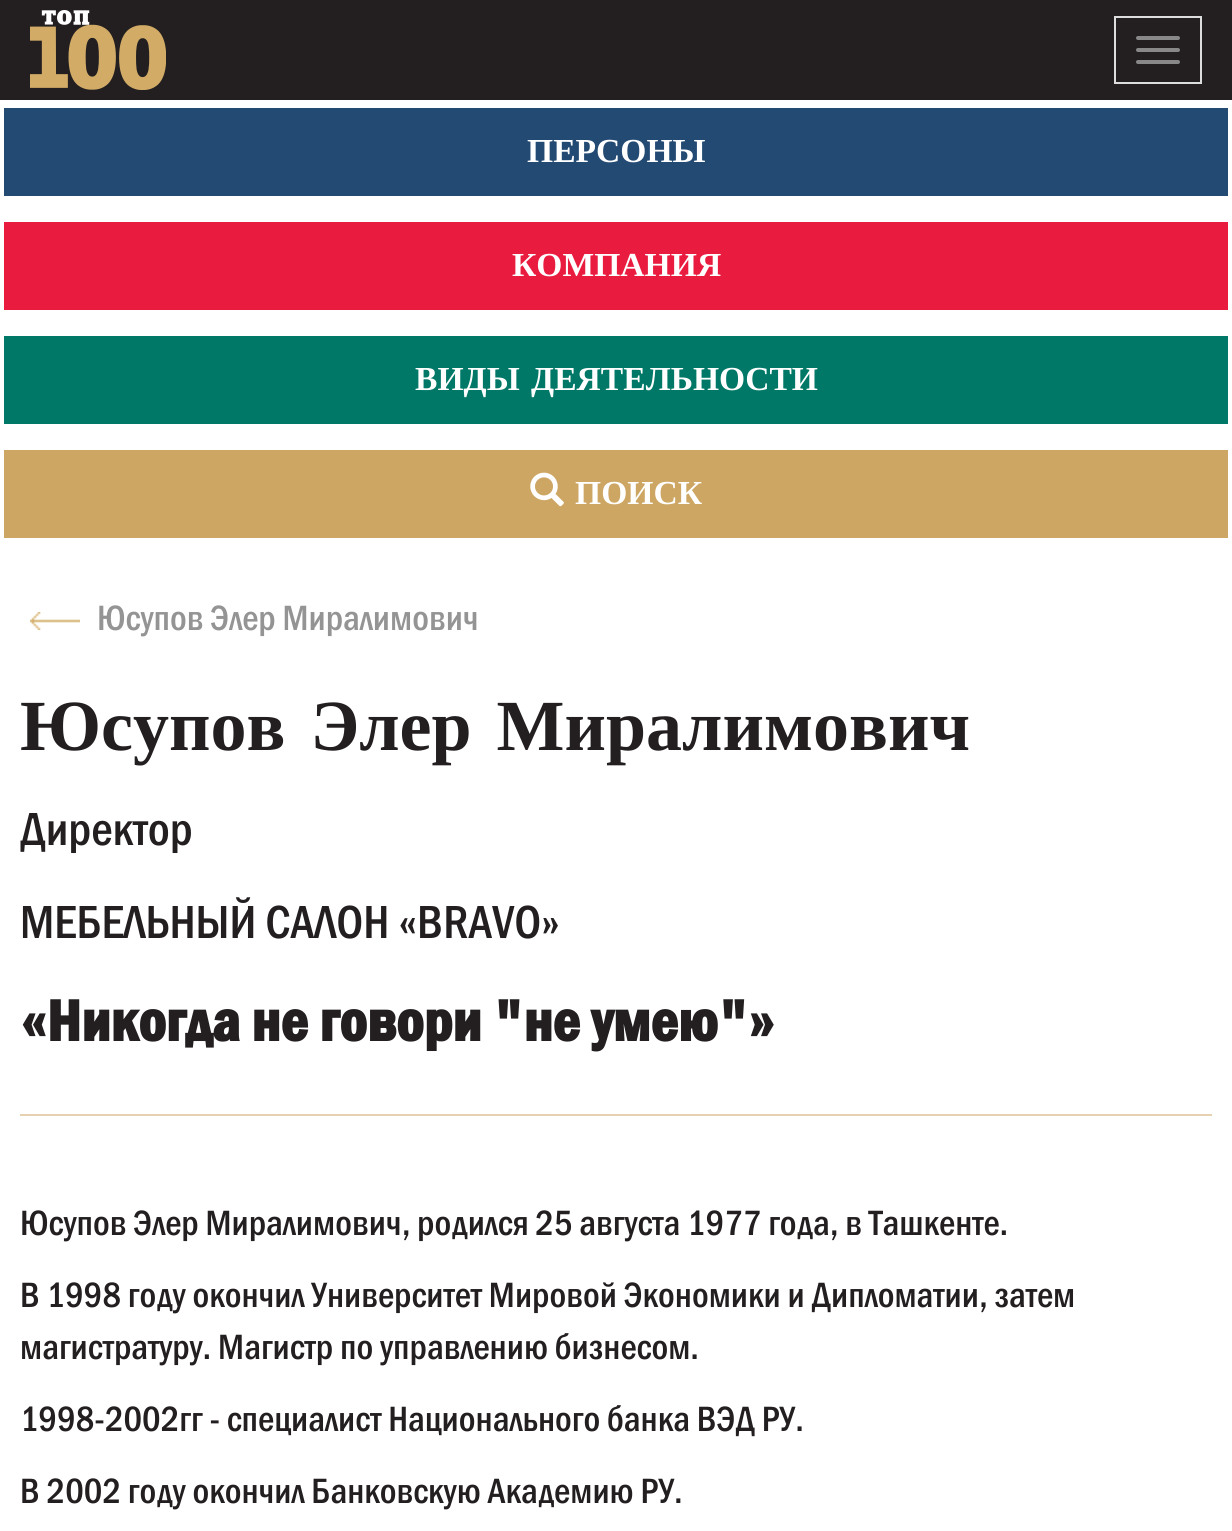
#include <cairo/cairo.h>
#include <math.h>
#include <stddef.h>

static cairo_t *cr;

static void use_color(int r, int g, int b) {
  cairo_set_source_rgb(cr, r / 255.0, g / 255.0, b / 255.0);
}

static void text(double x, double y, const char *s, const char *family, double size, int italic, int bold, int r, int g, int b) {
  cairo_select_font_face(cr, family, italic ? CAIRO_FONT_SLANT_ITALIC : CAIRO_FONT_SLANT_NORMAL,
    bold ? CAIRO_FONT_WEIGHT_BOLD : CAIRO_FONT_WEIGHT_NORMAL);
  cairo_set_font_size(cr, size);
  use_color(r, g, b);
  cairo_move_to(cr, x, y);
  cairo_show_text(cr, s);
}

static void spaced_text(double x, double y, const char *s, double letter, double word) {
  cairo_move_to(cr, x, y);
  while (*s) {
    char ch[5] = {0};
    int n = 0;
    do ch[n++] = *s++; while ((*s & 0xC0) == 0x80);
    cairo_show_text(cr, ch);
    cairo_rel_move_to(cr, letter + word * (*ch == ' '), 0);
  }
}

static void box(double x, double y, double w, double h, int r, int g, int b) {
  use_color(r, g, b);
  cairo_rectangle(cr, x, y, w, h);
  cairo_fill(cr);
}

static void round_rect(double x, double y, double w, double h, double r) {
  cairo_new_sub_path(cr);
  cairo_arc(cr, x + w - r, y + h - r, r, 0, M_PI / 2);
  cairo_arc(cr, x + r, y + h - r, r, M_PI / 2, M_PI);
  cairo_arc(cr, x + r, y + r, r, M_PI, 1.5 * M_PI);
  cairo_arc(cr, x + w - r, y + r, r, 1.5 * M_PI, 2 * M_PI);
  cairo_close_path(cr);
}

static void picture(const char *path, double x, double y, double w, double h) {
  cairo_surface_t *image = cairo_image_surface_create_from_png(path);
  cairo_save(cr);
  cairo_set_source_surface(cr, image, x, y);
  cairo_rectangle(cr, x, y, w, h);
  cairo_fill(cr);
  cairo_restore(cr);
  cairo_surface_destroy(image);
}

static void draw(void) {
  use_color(255, 255, 255);
  cairo_paint(cr);
  box(0, 0, 1232, 100, 35, 31, 32);
  picture("img_01.png", 30, 10, 136, 80);
  cairo_rectangle(cr, 1115, 17, 86, 66);
  use_color(221, 221, 221);
  cairo_stroke(cr);
  use_color(136, 136, 136);
  round_rect(1136, 36, 44, 4, 2);
  cairo_fill(cr);
  round_rect(1136, 48, 44, 4, 2);
  cairo_fill(cr);
  round_rect(1136, 60, 44, 4, 2);
  cairo_fill(cr);
  box(4, 108, 1224, 88, 35, 74, 115);
  box(4, 222, 1224, 88, 233, 27, 63);
  box(4, 336, 1224, 88, 0, 120, 103);
  box(4, 450, 1224, 88, 205, 166, 99);
  picture("img_02.png", 530, 472, 34, 35);
  box(20, 1114, 1192, 2, 230, 210, 177);
  picture("img_03.png", 30, 612, 50, 18);
  text(527, 162, "ПЕРСОНЫ", "Liberation Serif", 33.6, 0, 1, 255, 255, 255);
  text(512, 276, "КОМПАНИЯ", "Liberation Serif", 33.6, 0, 1, 255, 255, 255);
  spaced_text(415, 390, "ВИДЫ ДЕЯТЕЛЬНОСТИ", 0, 3);
  text(575, 504, "ПОИСК", "Liberation Serif", 33.6, 0, 1, 255, 255, 255);
  text(97, 630, "Юсупов Элер Миралимович", "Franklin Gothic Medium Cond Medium", 36.4, 0, 0, 148, 148, 148);
  cairo_select_font_face(cr, "Liberation Serif", CAIRO_FONT_SLANT_NORMAL, CAIRO_FONT_WEIGHT_BOLD);
  cairo_set_font_size(cr, 72);
  use_color(35, 31, 32);
  spaced_text(20, 750, "Юсупов Элер Миралимович", 0, 7);
  text(20, 845, "Директор", "Franklin Gothic Medium Cond Medium", 48, 0, 0, 35, 31, 32);
  text(20, 938, "МЕБЕЛЬНЫЙ САЛОН «BRAVO»", "Franklin Gothic Medium Cond Medium", 48, 0, 0, 35, 31, 32);
  text(20, 1041, "«Никогда не говори \"не умею\"»", "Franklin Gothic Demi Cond", 60, 0, 1, 35, 31, 32);
  text(20, 1235, "Юсупов Элер Миралимович, родился 25 августа 1977 года, в Ташкенте.", "Franklin Gothic Medium Cond Medium", 36.4, 0, 0, 35, 31, 32);
  text(20, 1307, "В 1998 году окончил Университет Мировой Экономики и Дипломатии, затем", "Franklin Gothic Medium Cond Medium", 36.4, 0, 0, 35, 31, 32);
  text(20, 1359, "магистратуру. Магистр по управлению бизнесом.", "Franklin Gothic Medium Cond Medium", 36.4, 0, 0, 35, 31, 32);
  text(20, 1431, "1998-2002гг - специалист Национального банка ВЭД РУ.", "Franklin Gothic Medium Cond Medium", 36.4, 0, 0, 35, 31, 32);
  text(20, 1503, "В 2002 году окончил Банковскую Академию РУ.", "Franklin Gothic Medium Cond Medium", 36.4, 0, 0, 35, 31, 32);
}

int main(void) {
  cairo_surface_t *surface = cairo_image_surface_create(CAIRO_FORMAT_RGB24, 1232, 1531);
  cr = cairo_create(surface);
  cairo_font_options_t *options = cairo_font_options_create();
  cairo_font_options_set_hint_metrics(options, CAIRO_HINT_METRICS_OFF);
  cairo_font_options_set_hint_style(options, CAIRO_HINT_STYLE_NONE);
  cairo_set_font_options(cr, options);
  cairo_set_miter_limit(cr, 4);
  draw();
  cairo_surface_write_to_png(surface, "out.png");
  cairo_font_options_destroy(options);
  cairo_destroy(cr);
  cairo_surface_destroy(surface);
  return 0;
}
